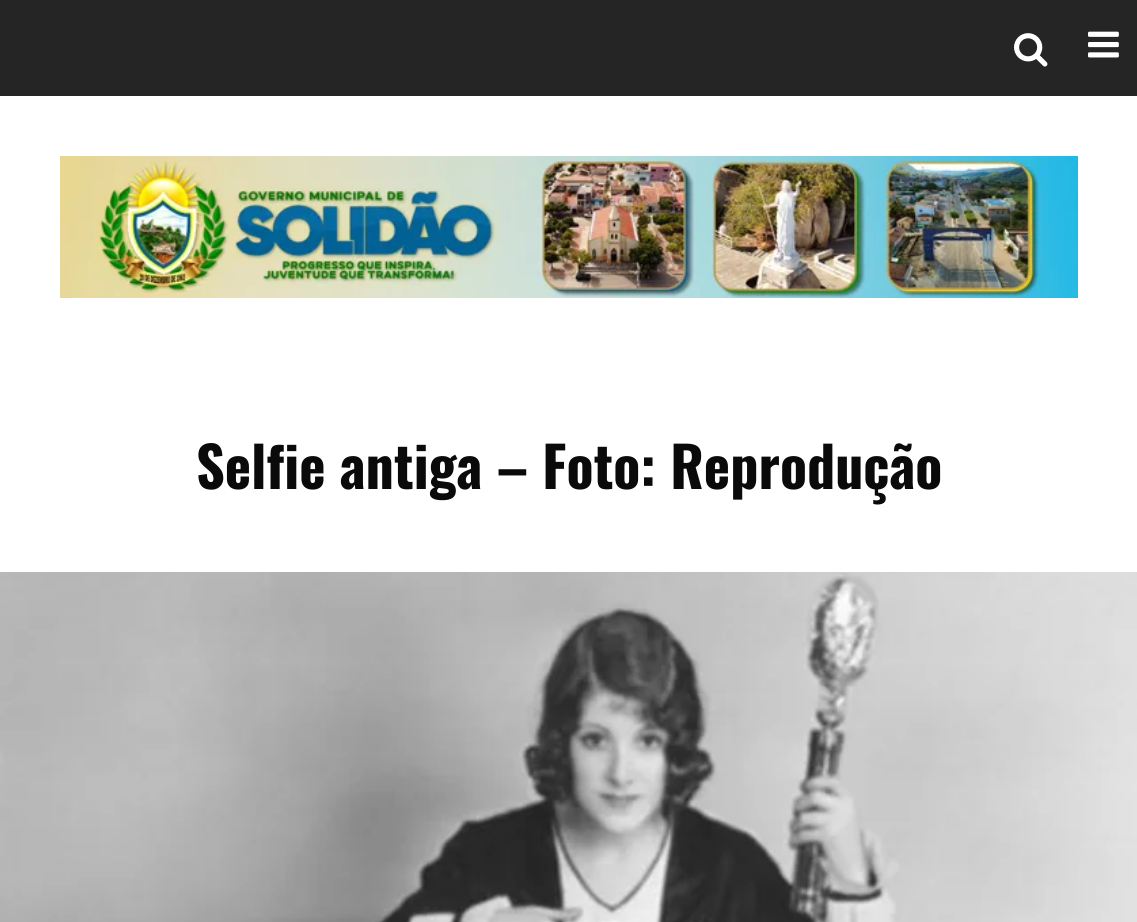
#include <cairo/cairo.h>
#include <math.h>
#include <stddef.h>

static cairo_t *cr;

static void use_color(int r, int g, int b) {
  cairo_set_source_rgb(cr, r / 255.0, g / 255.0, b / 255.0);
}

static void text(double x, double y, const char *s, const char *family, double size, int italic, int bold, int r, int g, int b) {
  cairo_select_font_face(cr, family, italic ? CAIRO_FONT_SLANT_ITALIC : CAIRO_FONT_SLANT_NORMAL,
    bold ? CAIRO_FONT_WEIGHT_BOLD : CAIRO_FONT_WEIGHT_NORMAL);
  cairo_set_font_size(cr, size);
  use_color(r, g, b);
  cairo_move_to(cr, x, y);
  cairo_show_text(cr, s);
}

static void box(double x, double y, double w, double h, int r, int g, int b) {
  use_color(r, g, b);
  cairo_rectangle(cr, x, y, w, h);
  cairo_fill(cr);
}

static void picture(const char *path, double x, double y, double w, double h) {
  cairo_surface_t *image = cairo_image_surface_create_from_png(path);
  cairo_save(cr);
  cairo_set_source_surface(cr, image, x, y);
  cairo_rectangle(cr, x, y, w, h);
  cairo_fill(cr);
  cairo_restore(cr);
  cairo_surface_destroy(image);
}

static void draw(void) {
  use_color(255, 255, 255);
  cairo_paint(cr);
  box(0, 0, 1137, 96, 37, 37, 37);
  picture("img_01.png", 1014, 33, 34, 34);
  picture("img_02.png", 1088, 31, 31, 27);
  picture("img_03.png", 60, 156, 1018, 142);
  picture("img_04.png", 0, 572, 1137, 350);
  text(196, 489, "Selfie antiga – Foto: Reprodução", "Oswald", 56, 0, 1, 10, 10, 10);
}

int main(void) {
  cairo_surface_t *surface = cairo_image_surface_create(CAIRO_FORMAT_RGB24, 1137, 922);
  cr = cairo_create(surface);
  cairo_font_options_t *options = cairo_font_options_create();
  cairo_font_options_set_hint_metrics(options, CAIRO_HINT_METRICS_OFF);
  cairo_font_options_set_hint_style(options, CAIRO_HINT_STYLE_NONE);
  cairo_set_font_options(cr, options);
  cairo_set_miter_limit(cr, 4);
  draw();
  cairo_surface_write_to_png(surface, "out.png");
  cairo_font_options_destroy(options);
  cairo_destroy(cr);
  cairo_surface_destroy(surface);
  return 0;
}
